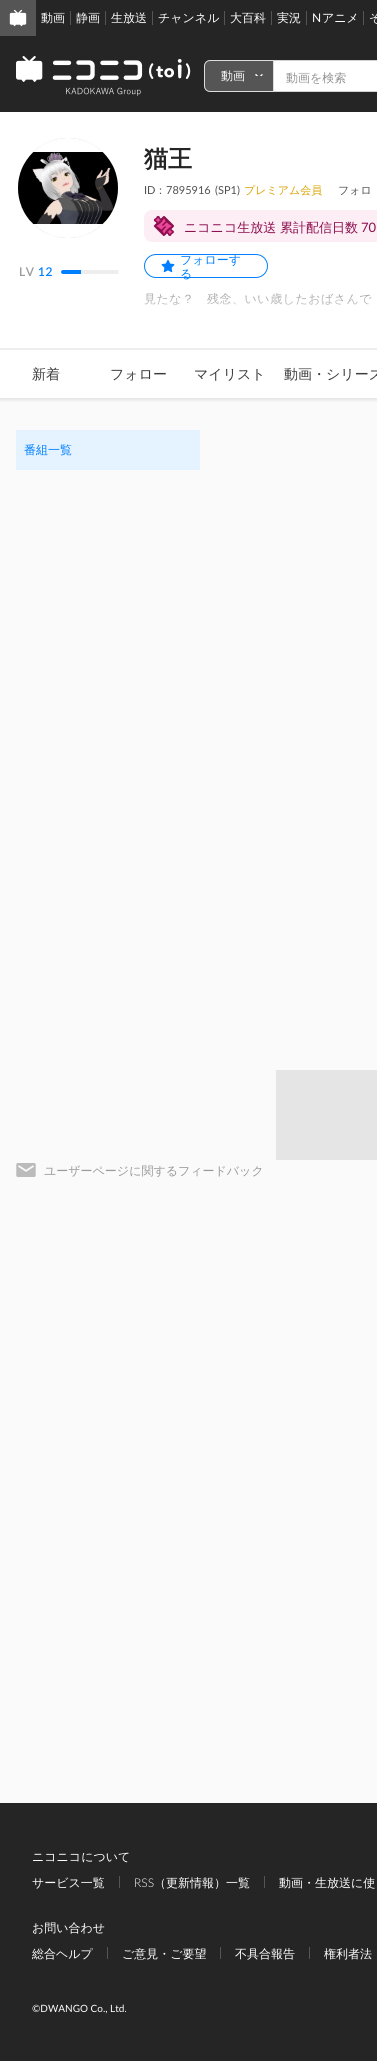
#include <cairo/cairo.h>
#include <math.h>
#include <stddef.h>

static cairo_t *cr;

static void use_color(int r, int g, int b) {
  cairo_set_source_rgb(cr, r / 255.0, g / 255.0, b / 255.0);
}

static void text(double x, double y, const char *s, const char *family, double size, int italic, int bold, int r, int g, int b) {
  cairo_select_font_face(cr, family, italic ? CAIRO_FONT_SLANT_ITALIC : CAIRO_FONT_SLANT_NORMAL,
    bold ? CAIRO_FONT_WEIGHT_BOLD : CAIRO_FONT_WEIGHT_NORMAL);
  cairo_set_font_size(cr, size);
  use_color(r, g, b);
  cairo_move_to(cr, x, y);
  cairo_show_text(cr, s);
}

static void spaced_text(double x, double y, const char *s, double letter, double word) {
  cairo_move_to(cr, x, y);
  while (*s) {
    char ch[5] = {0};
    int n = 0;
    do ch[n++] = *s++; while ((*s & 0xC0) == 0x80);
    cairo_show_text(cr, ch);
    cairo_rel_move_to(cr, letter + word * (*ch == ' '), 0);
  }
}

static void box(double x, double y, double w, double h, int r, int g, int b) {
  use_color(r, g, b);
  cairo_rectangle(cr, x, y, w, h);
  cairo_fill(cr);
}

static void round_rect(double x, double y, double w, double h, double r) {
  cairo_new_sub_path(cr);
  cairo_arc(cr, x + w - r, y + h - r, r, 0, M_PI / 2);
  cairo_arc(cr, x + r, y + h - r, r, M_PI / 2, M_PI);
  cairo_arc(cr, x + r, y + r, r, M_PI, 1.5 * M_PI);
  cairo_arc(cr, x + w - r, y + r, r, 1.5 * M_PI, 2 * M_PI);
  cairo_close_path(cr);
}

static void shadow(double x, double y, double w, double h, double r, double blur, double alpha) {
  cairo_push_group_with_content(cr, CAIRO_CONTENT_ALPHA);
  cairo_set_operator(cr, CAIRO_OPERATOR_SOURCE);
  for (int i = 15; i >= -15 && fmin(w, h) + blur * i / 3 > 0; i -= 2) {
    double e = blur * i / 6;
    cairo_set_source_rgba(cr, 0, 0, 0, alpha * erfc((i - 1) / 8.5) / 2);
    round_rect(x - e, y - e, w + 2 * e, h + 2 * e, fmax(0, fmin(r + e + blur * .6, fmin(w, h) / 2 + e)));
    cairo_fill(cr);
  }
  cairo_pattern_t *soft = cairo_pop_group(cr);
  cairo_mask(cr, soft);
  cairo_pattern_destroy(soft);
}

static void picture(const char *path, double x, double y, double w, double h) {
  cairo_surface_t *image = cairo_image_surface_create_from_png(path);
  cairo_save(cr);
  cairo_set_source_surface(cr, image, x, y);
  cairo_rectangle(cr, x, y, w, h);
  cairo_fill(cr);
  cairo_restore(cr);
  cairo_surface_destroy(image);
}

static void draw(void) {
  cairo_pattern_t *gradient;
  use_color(250, 250, 250);
  cairo_paint(cr);
  box(36, 0, 341, 36, 37, 37, 37);
  box(0, 0, 36, 36, 85, 85, 85);
  picture("img_01.png", 9, 9, 18, 18);
  box(70, 11, 1, 14, 85, 85, 85);
  box(105, 11, 1, 14, 85, 85, 85);
  box(152, 11, 1, 14, 85, 85, 85);
  box(224, 11, 1, 14, 85, 85, 85);
  box(271, 11, 1, 14, 85, 85, 85);
  box(306, 11, 1, 14, 85, 85, 85);
  box(363, 11, 1, 14, 85, 85, 85);
  box(0, 36, 377, 76, 37, 37, 37);
  picture("img_02.png", 16, 56, 175, 40);
  use_color(85, 85, 85);
  cairo_new_path(cr);
  cairo_move_to(cr, 210, 60.5);
  cairo_line_to(cr, 273.5, 60.5);
  cairo_line_to(cr, 273.5, 91.5);
  cairo_line_to(cr, 210, 91.5);
  cairo_curve_to(cr, 207, 91.5, 204.5, 89, 204.5, 86);
  cairo_line_to(cr, 204.5, 66);
  cairo_curve_to(cr, 204.5, 63, 207, 60.5, 210, 60.5);
  cairo_close_path(cr);
  cairo_fill_preserve(cr);
  use_color(221, 221, 221);
  cairo_set_line_width(cr, 1);
  cairo_stroke(cr);
  picture("img_03.png", 255, 74, 8, 2);
  box(274, 61, 103, 30, 255, 255, 255);
  use_color(211, 211, 211);
  cairo_set_fill_rule(cr, CAIRO_FILL_RULE_EVEN_ODD);
  cairo_new_path(cr);
  cairo_move_to(cr, 274, 60);
  cairo_line_to(cr, 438, 60);
  cairo_curve_to(cr, 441, 60, 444, 63, 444, 66);
  cairo_line_to(cr, 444, 86);
  cairo_curve_to(cr, 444, 89, 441, 92, 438, 92);
  cairo_line_to(cr, 274, 92);
  cairo_close_path(cr);
  cairo_move_to(cr, 274, 61);
  cairo_line_to(cr, 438, 61);
  cairo_curve_to(cr, 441, 61, 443, 63, 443, 66);
  cairo_line_to(cr, 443, 86);
  cairo_curve_to(cr, 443, 89, 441, 91, 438, 91);
  cairo_line_to(cr, 274, 91);
  cairo_close_path(cr);
  cairo_fill(cr);
  box(0, 112, 377, 236, 255, 255, 255);
  use_color(204, 204, 204);
  cairo_arc(cr, 68, 188, 50, 0, 2 * M_PI);
  cairo_fill(cr);
  picture("img_04.png", 18, 138, 100, 100);
  use_color(238, 238, 238);
  round_rect(61, 270, 58, 4, 2);
  cairo_fill(cr);
  use_color(0, 128, 255);
  cairo_new_path(cr);
  cairo_move_to(cr, 63, 270);
  cairo_line_to(cr, 81, 270);
  cairo_line_to(cr, 81, 274);
  cairo_line_to(cr, 63, 274);
  cairo_curve_to(cr, 62, 274, 61, 273, 61, 272);
  cairo_curve_to(cr, 61, 271, 62, 270, 63, 270);
  cairo_close_path(cr);
  cairo_fill(cr);
  use_color(253, 237, 245);
  round_rect(144, 210, 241, 32, 8);
  cairo_fill(cr);
  picture("img_05.png", 153, 215, 21, 21);
  round_rect(144.5, 254.5, 123, 23, 11.5);
  use_color(0, 128, 255);
  cairo_stroke(cr);
  picture("img_06.png", 161, 259, 14, 14);
  box(0, 348, 377, 2, 238, 238, 238);
  box(0, 350, 377, 48, 255, 255, 255);
  cairo_save(cr);
  cairo_set_fill_rule(cr, CAIRO_FILL_RULE_WINDING);
  cairo_rectangle(cr, 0, 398, 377, 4);
  cairo_clip(cr);
  use_color(0, 0, 0);
  shadow(0, 352, 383, 48, 0, 2, 0.1);
  cairo_restore(cr);
  box(16, 430, 184, 40, 229, 242, 255);
  box(276, 1070, 101, 90, 229, 229, 229);
  picture("img_07.png", 16, 1163, 20, 14);
  box(0, 1803, 377, 258, 37, 37, 37);
  box(119, 1876, 1, 12, 85, 85, 85);
  box(264, 1876, 1, 12, 85, 85, 85);
  box(107, 1947, 1, 12, 85, 85, 85);
  box(220, 1947, 1, 12, 85, 85, 85);
  box(309, 1947, 1, 12, 85, 85, 85);
  text(41, 22, "動画", "WenQuanYi Zen Hei Medium", 12, 0, 0, 255, 255, 255);
  text(76, 22, "静画", "WenQuanYi Zen Hei Medium", 12, 0, 0, 255, 255, 255);
  text(111, 22, "生放送", "WenQuanYi Zen Hei Medium", 12, 0, 0, 255, 255, 255);
  text(158, 22, "チャンネル", "WenQuanYi Zen Hei Medium", 12, 0, 0, 255, 255, 255);
  text(230, 22, "大百科", "WenQuanYi Zen Hei Medium", 12, 0, 0, 255, 255, 255);
  text(277, 22, "実況", "WenQuanYi Zen Hei Medium", 12, 0, 0, 255, 255, 255);
  text(312, 22, "N", "Lato", 12, 0, 0, 255, 255, 255);
  text(322, 22, "アニメ", "WenQuanYi Zen Hei Medium", 12, 0, 0, 255, 255, 255);
  text(369, 22, "そ", "WenQuanYi Zen Hei Medium", 12, 0, 0, 255, 255, 255);
  text(221, 80, "動画", "WenQuanYi Zen Hei Medium", 12, 0, 0, 255, 255, 255);
  text(286, 82, "動画を検索", "WenQuanYi Zen Hei Medium", 12, 0, 0, 146, 146, 146);
  cairo_select_font_face(cr, "Lato SemiBold", CAIRO_FONT_SLANT_NORMAL, CAIRO_FONT_WEIGHT_NORMAL);
  use_color(153, 153, 153);
  spaced_text(19, 276, "LV", 0.5, 0);
  use_color(0, 128, 255);
  spaced_text(38, 276, "12", 0.5, 0);
  text(144, 167, "猫王", "WenQuanYi Zen Hei", 24, 0, 1, 37, 37, 37);
  text(144, 194, "ID", "Lato", 11, 0, 0, 80, 80, 80);
  text(155, 194, "：", "WenQuanYi Zen Hei Medium", 11, 0, 0, 80, 80, 80);
  text(166, 194, "7895916", "Lato", 11, 0, 0, 80, 80, 80);
  text(215, 194, "(SP1)", "Lato", 11, 0, 0, 80, 80, 80);
  text(244, 194, "プレミアム会員", "WenQuanYi Zen Hei Medium", 11, 0, 0, 217, 163, 0);
  text(338, 194, "フォロ", "WenQuanYi Zen Hei Medium", 11, 0, 0, 80, 80, 80);
  text(184, 232, "ニコニコ生放送 累計配信日数", "WenQuanYi Zen Hei Medium", 13, 0, 0, 139, 15, 77);
  text(361, 232, "70", "Lato", 13, 0, 0, 139, 15, 77);
  text(180, 264, "フォローす", "WenQuanYi Zen Hei Medium", 12, 0, 0, 0, 128, 255);
  text(180, 278, "る", "WenQuanYi Zen Hei Medium", 12, 0, 0, 0, 128, 255);
  use_color(153, 153, 153);
  spaced_text(144, 303, "見たな？　残念、いい歳したおばさんで", 0.5, 0);
  gradient = cairo_pattern_create_linear(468, 290, 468, 326);
  cairo_pattern_add_color_stop_rgba(gradient, 0, 1, 1, 1, 0);
  cairo_pattern_add_color_stop_rgba(gradient, 1, 1, 1, 1, 1);
  cairo_set_source(cr, gradient);
  cairo_pattern_destroy(gradient);
  cairo_rectangle(cr, 144, 293, 228, 13);
  cairo_fill(cr);
  text(32, 379, "新着", "WenQuanYi Zen Hei Medium", 14, 0, 0, 59, 59, 59);
  text(110, 379, "フォロー", "WenQuanYi Zen Hei Medium", 14, 0, 0, 59, 59, 59);
  text(194, 379, "マイリスト", "WenQuanYi Zen Hei Medium", 14, 0, 0, 59, 59, 59);
  text(284, 379, "動画・シリーズ", "WenQuanYi Zen Hei Medium", 14, 0, 0, 59, 59, 59);
  text(24, 454, "番組一覧", "WenQuanYi Zen Hei Medium", 12, 0, 0, 0, 128, 255);
  text(44, 1175, "ユーザーページに関するフィードバック", "WenQuanYi Zen Hei Medium", 12, 0, 0, 153, 153, 153);
  text(32, 1861, "ニコニコについて", "WenQuanYi Zen Hei Medium", 12, 0, 0, 255, 255, 255);
  text(32, 1887, "サービス一覧", "WenQuanYi Zen Hei Medium", 12, 0, 0, 255, 255, 255);
  text(134, 1887, "RSS", "Lato Light", 12, 0, 0, 255, 255, 255);
  text(154, 1887, "（更新情報）一覧", "WenQuanYi Zen Hei Medium", 12, 0, 0, 255, 255, 255);
  text(279, 1887, "動画・生放送に使", "WenQuanYi Zen Hei Medium", 12, 0, 0, 255, 255, 255);
  text(32, 1932, "お問い合わせ", "WenQuanYi Zen Hei Medium", 12, 0, 0, 255, 255, 255);
  text(32, 1958, "総合ヘルプ", "WenQuanYi Zen Hei Medium", 12, 0, 0, 255, 255, 255);
  text(122, 1958, "ご意見・ご要望", "WenQuanYi Zen Hei Medium", 12, 0, 0, 255, 255, 255);
  text(235, 1958, "不具合報告", "WenQuanYi Zen Hei Medium", 12, 0, 0, 255, 255, 255);
  text(324, 1958, "権利者法", "WenQuanYi Zen Hei Medium", 12, 0, 0, 255, 255, 255);
  text(32, 2012, "©DWANGO Co., Ltd.", "Lato", 10, 0, 0, 255, 255, 255);
}

int main(void) {
  cairo_surface_t *surface = cairo_image_surface_create(CAIRO_FORMAT_RGB24, 377, 2061);
  cr = cairo_create(surface);
  cairo_font_options_t *options = cairo_font_options_create();
  cairo_font_options_set_hint_metrics(options, CAIRO_HINT_METRICS_OFF);
  cairo_font_options_set_hint_style(options, CAIRO_HINT_STYLE_NONE);
  cairo_set_font_options(cr, options);
  cairo_set_miter_limit(cr, 4);
  draw();
  cairo_surface_write_to_png(surface, "out.png");
  cairo_font_options_destroy(options);
  cairo_destroy(cr);
  cairo_surface_destroy(surface);
  return 0;
}
